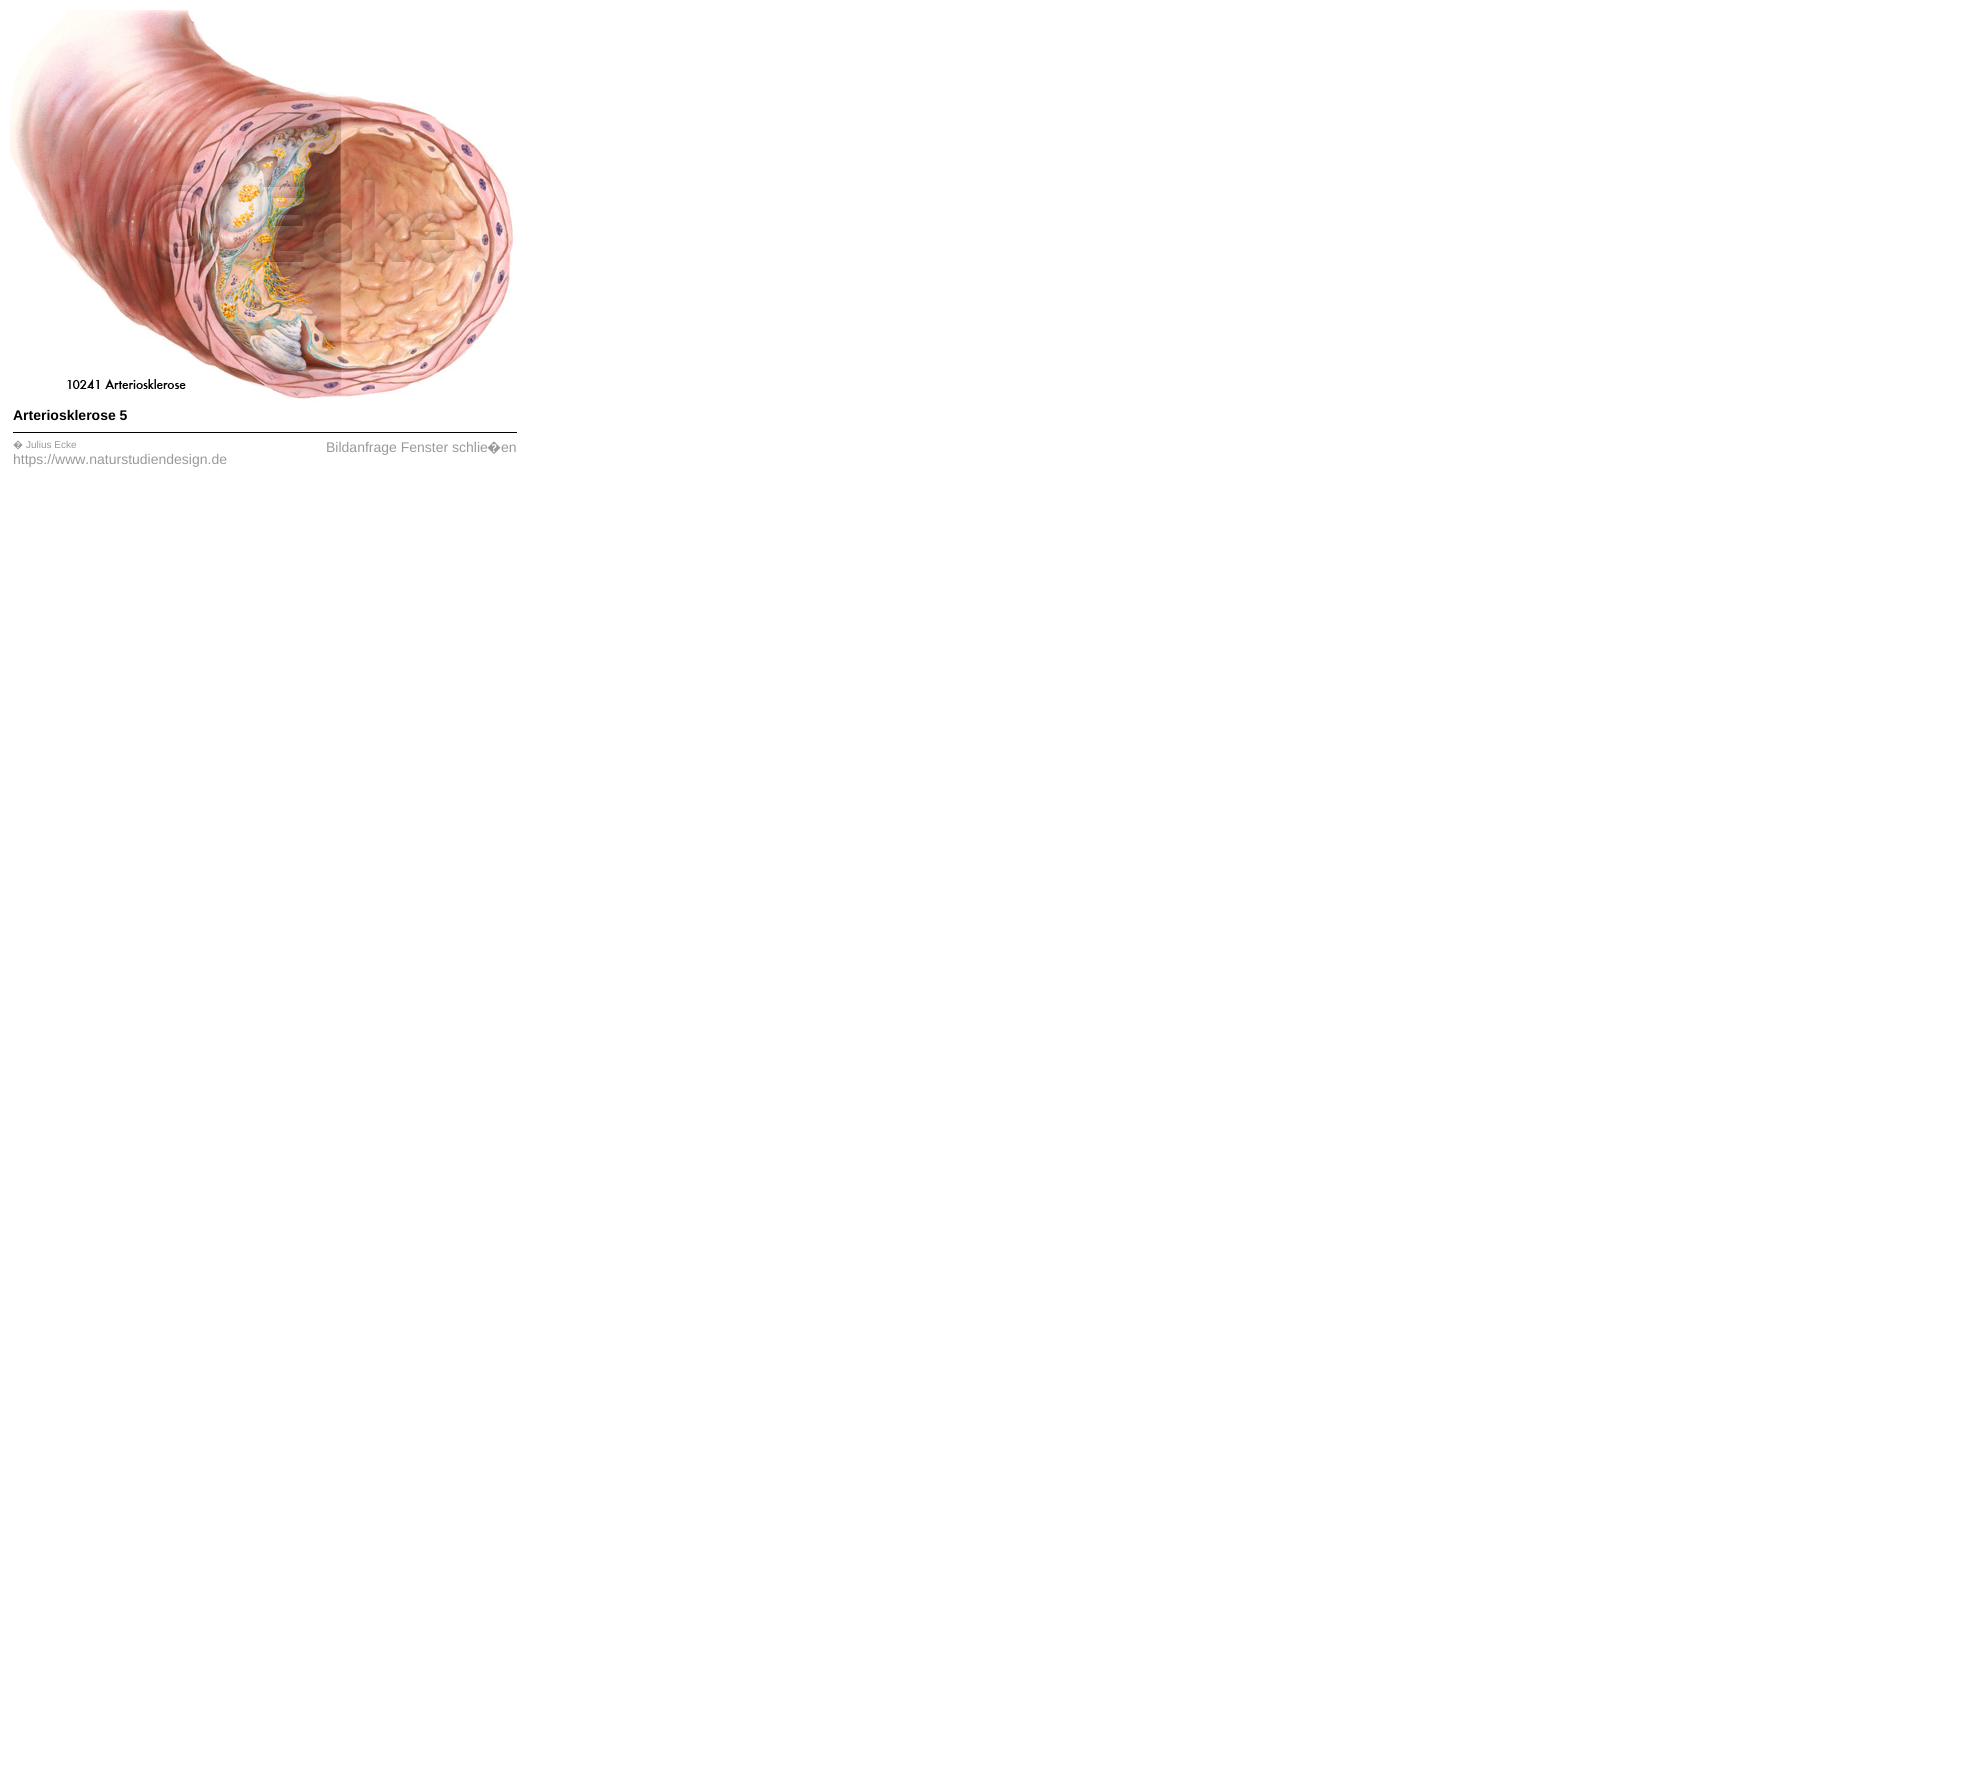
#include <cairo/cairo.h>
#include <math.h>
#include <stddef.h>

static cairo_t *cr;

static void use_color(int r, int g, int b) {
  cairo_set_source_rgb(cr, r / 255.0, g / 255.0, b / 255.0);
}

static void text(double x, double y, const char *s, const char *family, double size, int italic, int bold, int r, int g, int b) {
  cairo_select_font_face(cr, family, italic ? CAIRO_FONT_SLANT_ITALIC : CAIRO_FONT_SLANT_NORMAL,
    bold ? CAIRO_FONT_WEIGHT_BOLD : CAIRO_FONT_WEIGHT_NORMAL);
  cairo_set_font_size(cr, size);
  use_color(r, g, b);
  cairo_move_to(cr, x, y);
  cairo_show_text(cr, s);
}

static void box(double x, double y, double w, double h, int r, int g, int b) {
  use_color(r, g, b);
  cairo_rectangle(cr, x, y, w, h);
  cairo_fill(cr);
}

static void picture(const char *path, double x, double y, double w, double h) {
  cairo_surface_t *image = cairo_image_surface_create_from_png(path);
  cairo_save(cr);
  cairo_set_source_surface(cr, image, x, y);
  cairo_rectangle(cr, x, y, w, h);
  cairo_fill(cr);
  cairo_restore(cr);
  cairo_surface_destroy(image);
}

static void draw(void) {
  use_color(255, 255, 255);
  cairo_paint(cr);
  picture("img_01.png", 10, 10, 504, 392);
  box(13, 432, 504, 1, 0, 0, 0);
  text(13, 420, "Arteriosklerose 5", "Liberation Sans", 14, 0, 1, 0, 0, 0);
  text(13, 448, "�", "Noto Sans", 10, 0, 0, 153, 153, 153);
  text(26, 448, "Julius Ecke", "Liberation Sans", 10, 0, 0, 153, 153, 153);
  text(13, 464, "https://www.naturstudiendesign.de", "Liberation Sans", 14, 0, 0, 153, 153, 153);
  text(326, 452, "Bildanfrage Fenster schlie", "Liberation Sans", 14, 0, 0, 153, 153, 153);
  text(487, 452, "�", "Noto Sans", 14, 0, 0, 153, 153, 153);
  text(501, 452, "en", "Liberation Sans", 14, 0, 0, 153, 153, 153);
}

int main(void) {
  cairo_surface_t *surface = cairo_image_surface_create(CAIRO_FORMAT_RGB24, 1976, 1770);
  cr = cairo_create(surface);
  cairo_font_options_t *options = cairo_font_options_create();
  cairo_font_options_set_hint_metrics(options, CAIRO_HINT_METRICS_OFF);
  cairo_font_options_set_hint_style(options, CAIRO_HINT_STYLE_NONE);
  cairo_set_font_options(cr, options);
  cairo_set_miter_limit(cr, 4);
  draw();
  cairo_surface_write_to_png(surface, "out.png");
  cairo_font_options_destroy(options);
  cairo_destroy(cr);
  cairo_surface_destroy(surface);
  return 0;
}
